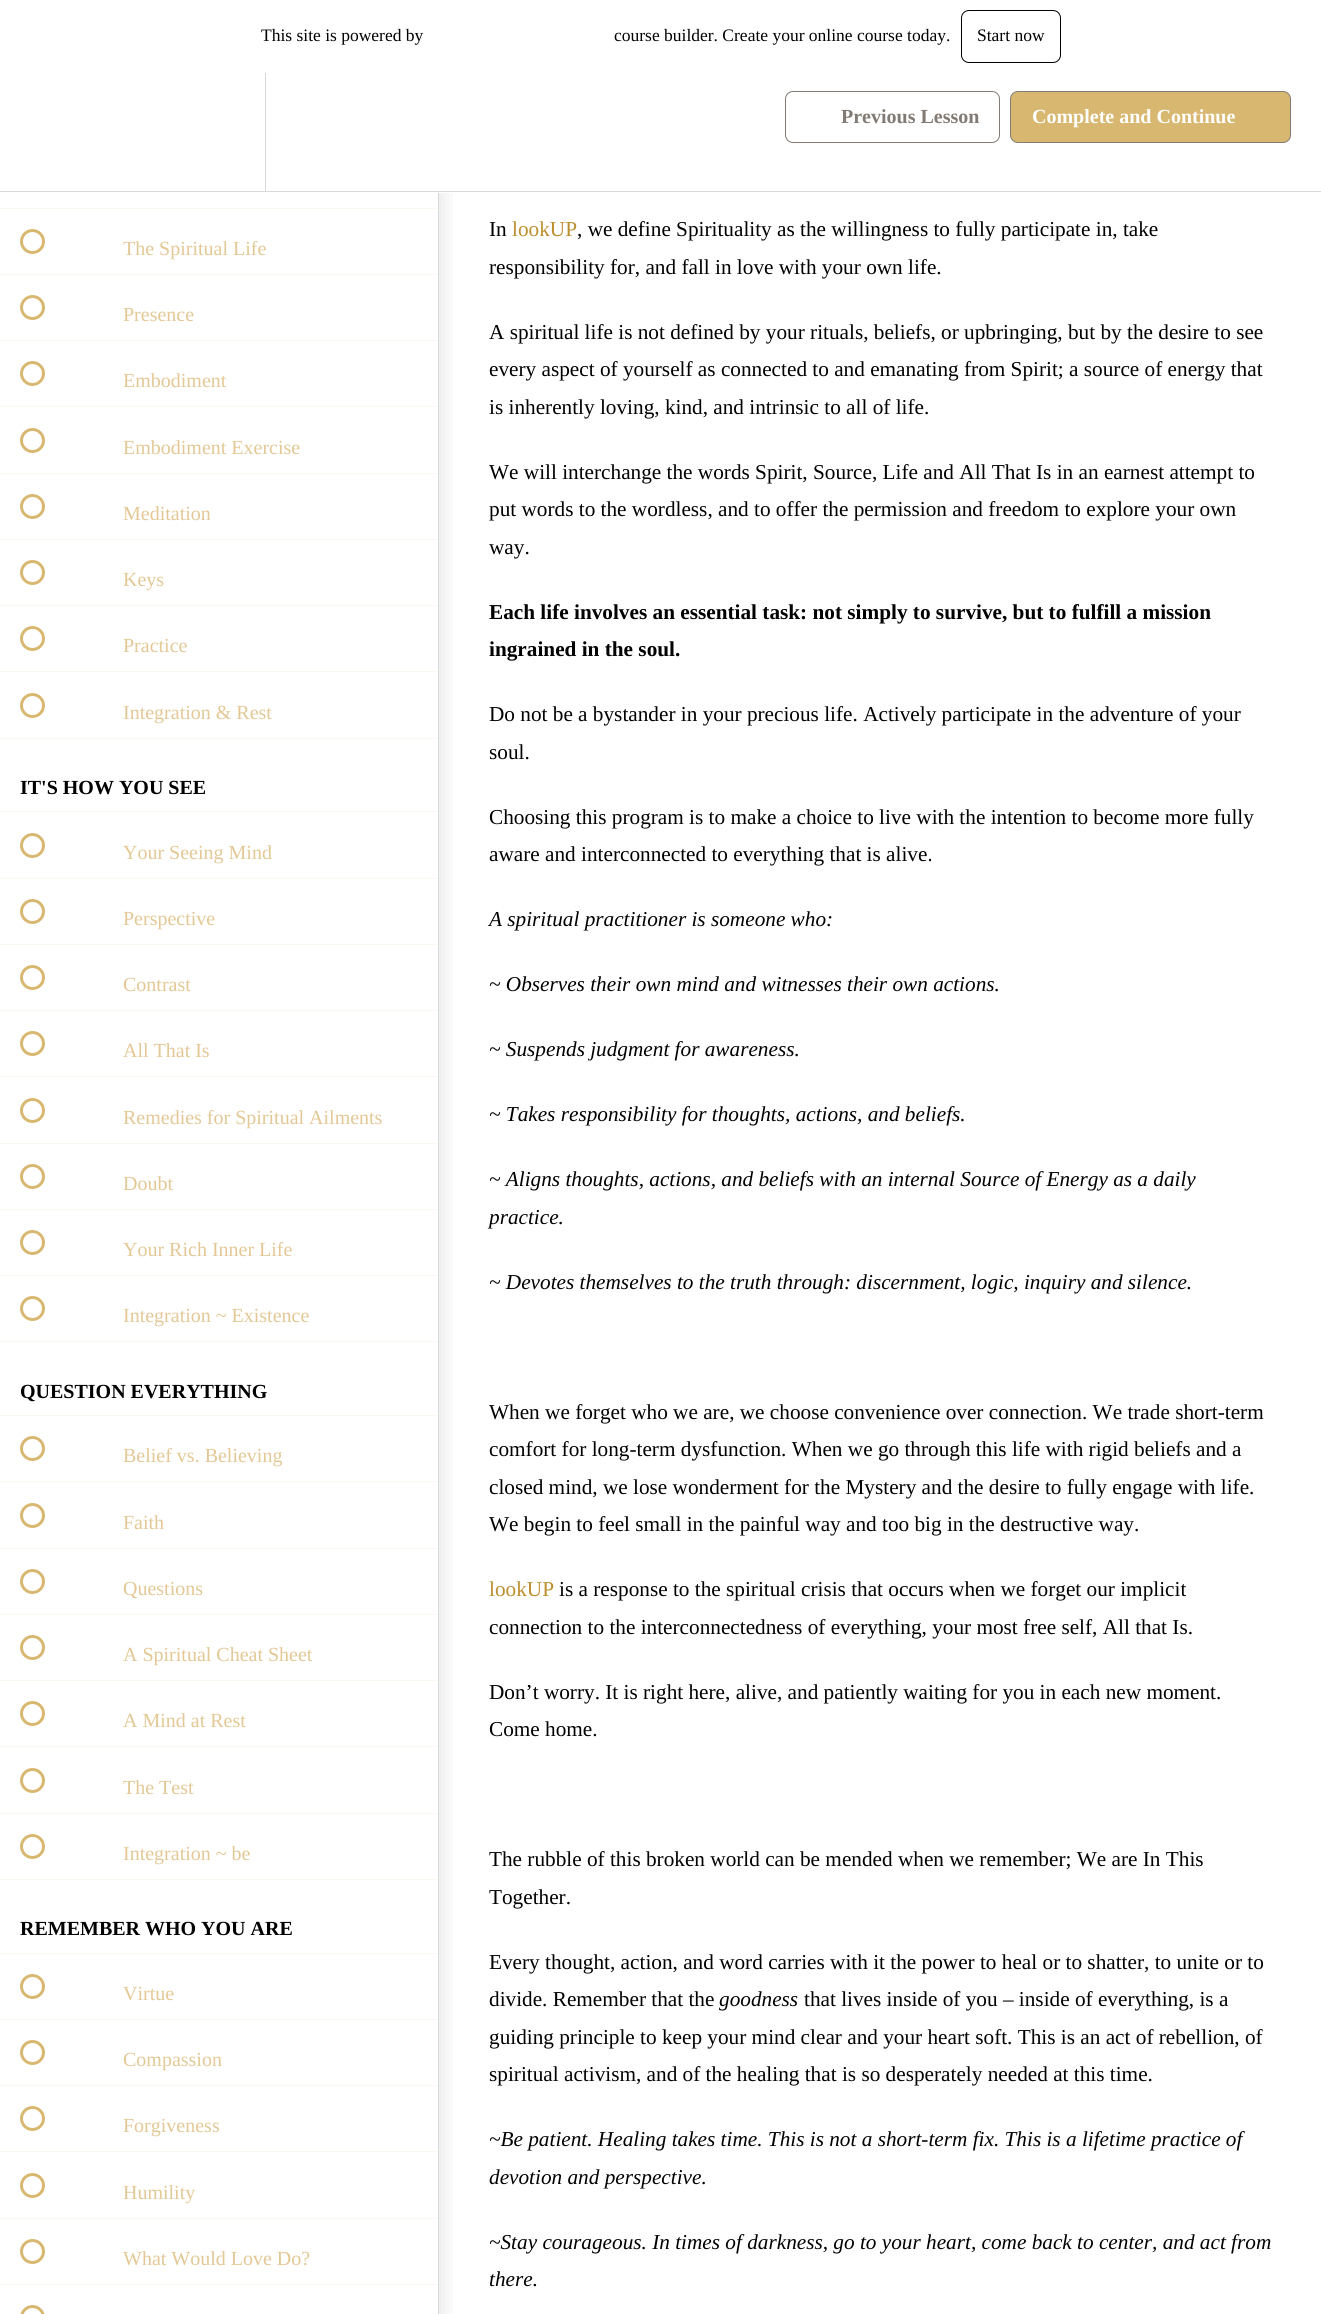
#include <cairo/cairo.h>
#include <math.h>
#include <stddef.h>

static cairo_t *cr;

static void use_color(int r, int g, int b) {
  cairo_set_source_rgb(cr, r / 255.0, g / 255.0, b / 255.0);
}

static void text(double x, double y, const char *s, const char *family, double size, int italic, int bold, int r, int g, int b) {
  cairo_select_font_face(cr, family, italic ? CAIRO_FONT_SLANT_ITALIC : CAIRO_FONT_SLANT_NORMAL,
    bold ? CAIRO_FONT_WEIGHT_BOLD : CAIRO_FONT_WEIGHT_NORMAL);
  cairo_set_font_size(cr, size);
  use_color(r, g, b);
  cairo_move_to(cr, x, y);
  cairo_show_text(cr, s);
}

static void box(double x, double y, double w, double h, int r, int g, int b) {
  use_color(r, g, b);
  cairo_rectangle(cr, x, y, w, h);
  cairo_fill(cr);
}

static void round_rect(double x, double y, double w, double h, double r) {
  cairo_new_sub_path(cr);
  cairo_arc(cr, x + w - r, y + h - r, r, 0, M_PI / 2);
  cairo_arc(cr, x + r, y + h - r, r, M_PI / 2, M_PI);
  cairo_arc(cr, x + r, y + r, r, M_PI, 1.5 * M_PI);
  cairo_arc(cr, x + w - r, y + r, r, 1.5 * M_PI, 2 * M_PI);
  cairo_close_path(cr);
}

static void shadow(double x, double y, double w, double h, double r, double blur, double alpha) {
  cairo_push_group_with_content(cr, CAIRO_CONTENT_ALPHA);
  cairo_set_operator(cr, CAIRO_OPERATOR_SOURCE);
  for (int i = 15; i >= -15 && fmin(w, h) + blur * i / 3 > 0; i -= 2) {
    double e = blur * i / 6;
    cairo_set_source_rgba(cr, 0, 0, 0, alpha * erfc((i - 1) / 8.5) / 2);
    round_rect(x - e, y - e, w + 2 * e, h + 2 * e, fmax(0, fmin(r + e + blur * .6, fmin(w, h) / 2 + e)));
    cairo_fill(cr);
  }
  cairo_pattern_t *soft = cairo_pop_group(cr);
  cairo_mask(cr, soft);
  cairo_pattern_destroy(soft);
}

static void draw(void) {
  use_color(255, 255, 255);
  cairo_paint(cr);
  cairo_save(cr);
  cairo_rectangle(cr, 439, 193, 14, 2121);
  cairo_clip(cr);
  use_color(32, 39, 45);
  shadow(0, 98, 439, 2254, 0, 12.5, 0.15);
  cairo_restore(cr);
  box(0, 80, 457, 113, 255, 255, 255);
  box(0, 191, 1321, 1, 215, 218, 219);
  round_rect(961.5, 10.5, 99, 52, 7.5);
  use_color(0, 0, 0);
  cairo_set_line_width(cr, 1);
  cairo_stroke(cr);
  box(265, 73, 1, 118, 215, 218, 219);
  round_rect(785.5, 91.5, 214, 51, 7.5);
  use_color(130, 123, 117);
  cairo_stroke(cr);
  use_color(216, 184, 112);
  round_rect(1010.5, 91.5, 280, 51, 7.5);
  cairo_fill_preserve(cr);
  use_color(130, 123, 117);
  cairo_stroke(cr);
  box(438, 193, 1, 2121, 215, 218, 219);
  box(0, 208, 438, 1, 251, 248, 241);
  box(0, 274, 438, 1, 251, 248, 241);
  cairo_arc(cr, 32.5, 241.5, 11, 0, 2 * M_PI);
  use_color(216, 184, 112);
  cairo_set_line_width(cr, 3);
  cairo_stroke(cr);
  box(0, 340, 438, 1, 251, 248, 241);
  cairo_arc(cr, 32.5, 307.5, 11, 0, 2 * M_PI);
  use_color(216, 184, 112);
  cairo_stroke(cr);
  box(0, 406, 438, 1, 251, 248, 241);
  cairo_arc(cr, 32.5, 373.5, 11, 0, 2 * M_PI);
  use_color(216, 184, 112);
  cairo_stroke(cr);
  box(0, 473, 438, 1, 251, 248, 241);
  cairo_arc(cr, 32.5, 440.5, 11, 0, 2 * M_PI);
  use_color(216, 184, 112);
  cairo_stroke(cr);
  box(0, 539, 438, 1, 251, 248, 241);
  cairo_arc(cr, 32.5, 506.5, 11, 0, 2 * M_PI);
  use_color(216, 184, 112);
  cairo_stroke(cr);
  box(0, 605, 438, 1, 251, 248, 241);
  cairo_arc(cr, 32.5, 572.5, 11, 0, 2 * M_PI);
  use_color(216, 184, 112);
  cairo_stroke(cr);
  box(0, 671, 438, 1, 251, 248, 241);
  cairo_arc(cr, 32.5, 638.5, 11, 0, 2 * M_PI);
  use_color(216, 184, 112);
  cairo_stroke(cr);
  box(0, 738, 438, 1, 251, 248, 241);
  cairo_arc(cr, 32.5, 705.5, 11, 0, 2 * M_PI);
  use_color(216, 184, 112);
  cairo_stroke(cr);
  box(0, 811, 438, 1, 251, 248, 241);
  box(0, 878, 438, 1, 251, 248, 241);
  cairo_arc(cr, 32.5, 845.5, 11, 0, 2 * M_PI);
  use_color(216, 184, 112);
  cairo_stroke(cr);
  box(0, 944, 438, 1, 251, 248, 241);
  cairo_arc(cr, 32.5, 911.5, 11, 0, 2 * M_PI);
  use_color(216, 184, 112);
  cairo_stroke(cr);
  box(0, 1010, 438, 1, 251, 248, 241);
  cairo_arc(cr, 32.5, 977.5, 11, 0, 2 * M_PI);
  use_color(216, 184, 112);
  cairo_stroke(cr);
  box(0, 1076, 438, 1, 251, 248, 241);
  cairo_arc(cr, 32.5, 1043.5, 11, 0, 2 * M_PI);
  use_color(216, 184, 112);
  cairo_stroke(cr);
  box(0, 1143, 438, 1, 251, 248, 241);
  cairo_arc(cr, 32.5, 1110.5, 11, 0, 2 * M_PI);
  use_color(216, 184, 112);
  cairo_stroke(cr);
  box(0, 1209, 438, 1, 251, 248, 241);
  cairo_arc(cr, 32.5, 1176.5, 11, 0, 2 * M_PI);
  use_color(216, 184, 112);
  cairo_stroke(cr);
  box(0, 1275, 438, 1, 251, 248, 241);
  cairo_arc(cr, 32.5, 1242.5, 11, 0, 2 * M_PI);
  use_color(216, 184, 112);
  cairo_stroke(cr);
  box(0, 1341, 438, 1, 251, 248, 241);
  cairo_arc(cr, 32.5, 1308.5, 11, 0, 2 * M_PI);
  use_color(216, 184, 112);
  cairo_stroke(cr);
  box(0, 1415, 438, 1, 251, 248, 241);
  box(0, 1481, 438, 1, 251, 248, 241);
  cairo_arc(cr, 32.5, 1448.5, 11, 0, 2 * M_PI);
  use_color(216, 184, 112);
  cairo_stroke(cr);
  box(0, 1548, 438, 1, 251, 248, 241);
  cairo_arc(cr, 32.5, 1515.5, 11, 0, 2 * M_PI);
  use_color(216, 184, 112);
  cairo_stroke(cr);
  box(0, 1614, 438, 1, 251, 248, 241);
  cairo_arc(cr, 32.5, 1581.5, 11, 0, 2 * M_PI);
  use_color(216, 184, 112);
  cairo_stroke(cr);
  box(0, 1680, 438, 1, 251, 248, 241);
  cairo_arc(cr, 32.5, 1647.5, 11, 0, 2 * M_PI);
  use_color(216, 184, 112);
  cairo_stroke(cr);
  box(0, 1746, 438, 1, 251, 248, 241);
  cairo_arc(cr, 32.5, 1713.5, 11, 0, 2 * M_PI);
  use_color(216, 184, 112);
  cairo_stroke(cr);
  box(0, 1813, 438, 1, 251, 248, 241);
  cairo_arc(cr, 32.5, 1780.5, 11, 0, 2 * M_PI);
  use_color(216, 184, 112);
  cairo_stroke(cr);
  box(0, 1879, 438, 1, 251, 248, 241);
  cairo_arc(cr, 32.5, 1846.5, 11, 0, 2 * M_PI);
  use_color(216, 184, 112);
  cairo_stroke(cr);
  box(0, 1953, 438, 1, 251, 248, 241);
  box(0, 2019, 438, 1, 251, 248, 241);
  cairo_arc(cr, 32.5, 1986.5, 11, 0, 2 * M_PI);
  use_color(216, 184, 112);
  cairo_stroke(cr);
  box(0, 2085, 438, 1, 251, 248, 241);
  cairo_arc(cr, 32.5, 2052.5, 11, 0, 2 * M_PI);
  use_color(216, 184, 112);
  cairo_stroke(cr);
  box(0, 2151, 438, 1, 251, 248, 241);
  cairo_arc(cr, 32.5, 2118.5, 11, 0, 2 * M_PI);
  use_color(216, 184, 112);
  cairo_stroke(cr);
  box(0, 2218, 438, 1, 251, 248, 241);
  cairo_arc(cr, 32.5, 2185.5, 11, 0, 2 * M_PI);
  use_color(216, 184, 112);
  cairo_stroke(cr);
  box(0, 2284, 438, 1, 251, 248, 241);
  cairo_arc(cr, 32.5, 2251.5, 11, 0, 2 * M_PI);
  use_color(216, 184, 112);
  cairo_stroke(cr);
  cairo_arc(cr, 32.5, 2317.5, 11, 0, 2 * M_PI);
  cairo_stroke(cr);
  text(261, 41, "This site is powered by", "Liberation Serif", 17.5, 0, 0, 0, 0, 0);
  text(614, 41, "course builder. Create your online course today.", "Liberation Serif", 17.5, 0, 0, 0, 0, 0);
  text(977, 41, "Start now", "Liberation Serif", 17.5, 0, 0, 0, 0, 0);
  text(841, 123, "Previous Lesson", "Liberation Serif", 20, 0, 1, 130, 123, 117);
  text(1032, 123, "Complete and Continue", "Liberation Serif", 20, 0, 1, 255, 255, 255);
  text(123, 255, "The Spiritual Life", "Liberation Serif", 20, 0, 0, 227, 200, 149);
  text(123, 321, "Presence", "Liberation Serif", 20, 0, 0, 227, 200, 149);
  text(123, 387, "Embodiment", "Liberation Serif", 20, 0, 0, 227, 200, 149);
  text(123, 454, "Embodiment Exercise", "Liberation Serif", 20, 0, 0, 227, 200, 149);
  text(123, 520, "Meditation", "Liberation Serif", 20, 0, 0, 227, 200, 149);
  text(123, 586, "Keys", "Liberation Serif", 20, 0, 0, 227, 200, 149);
  text(123, 652, "Practice", "Liberation Serif", 20, 0, 0, 227, 200, 149);
  text(123, 719, "Integration & Rest", "Liberation Serif", 20, 0, 0, 227, 200, 149);
  text(20, 794, "IT'S HOW YOU SEE", "Liberation Serif", 20, 0, 1, 0, 0, 0);
  text(123, 859, "Your Seeing Mind", "Liberation Serif", 20, 0, 0, 227, 200, 149);
  text(123, 925, "Perspective", "Liberation Serif", 20, 0, 0, 227, 200, 149);
  text(123, 991, "Contrast", "Liberation Serif", 20, 0, 0, 227, 200, 149);
  text(123, 1057, "All That Is", "Liberation Serif", 20, 0, 0, 227, 200, 149);
  text(123, 1124, "Remedies for Spiritual Ailments", "Liberation Serif", 20, 0, 0, 227, 200, 149);
  text(123, 1190, "Doubt", "Liberation Serif", 20, 0, 0, 227, 200, 149);
  text(123, 1256, "Your Rich Inner Life", "Liberation Serif", 20, 0, 0, 227, 200, 149);
  text(123, 1322, "Integration ~ Existence", "Liberation Serif", 20, 0, 0, 227, 200, 149);
  text(20, 1398, "QUESTION EVERYTHING", "Liberation Serif", 20, 0, 1, 0, 0, 0);
  text(123, 1462, "Belief vs. Believing", "Liberation Serif", 20, 0, 0, 227, 200, 149);
  text(123, 1529, "Faith", "Liberation Serif", 20, 0, 0, 227, 200, 149);
  text(123, 1595, "Questions", "Liberation Serif", 20, 0, 0, 227, 200, 149);
  text(123, 1661, "A Spiritual Cheat Sheet", "Liberation Serif", 20, 0, 0, 227, 200, 149);
  text(123, 1727, "A Mind at Rest", "Liberation Serif", 20, 0, 0, 227, 200, 149);
  text(123, 1794, "The Test", "Liberation Serif", 20, 0, 0, 227, 200, 149);
  text(123, 1860, "Integration ~ be", "Liberation Serif", 20, 0, 0, 227, 200, 149);
  text(20, 1935, "REMEMBER WHO YOU ARE", "Liberation Serif", 20, 0, 1, 0, 0, 0);
  text(123, 2000, "Virtue", "Liberation Serif", 20, 0, 0, 227, 200, 149);
  text(123, 2066, "Compassion", "Liberation Serif", 20, 0, 0, 227, 200, 149);
  text(123, 2132, "Forgiveness", "Liberation Serif", 20, 0, 0, 227, 200, 149);
  text(123, 2199, "Humility", "Liberation Serif", 20, 0, 0, 227, 200, 149);
  text(123, 2265, "What Would Love Do?", "Liberation Serif", 20, 0, 0, 227, 200, 149);
  text(489, 236, "In", "Liberation Serif", 21.25, 0, 0, 0, 0, 0);
  text(512, 236, "lookUP", "Liberation Serif", 21.25, 0, 0, 189, 142, 45);
  text(577, 236, ", we define Spirituality as the willingness to fully participate in, take", "Liberation Serif", 21.25, 0, 0, 0, 0, 0);
  text(489, 274, "responsibility for, and fall in love with your own life.", "Liberation Serif", 21.25, 0, 0, 0, 0, 0);
  text(489, 339, "A spiritual life is not defined by your rituals, beliefs, or upbringing, but by the desire to see", "Liberation Serif", 21.25, 0, 0, 0, 0, 0);
  text(489, 376, "every aspect of yourself as connected to and emanating from Spirit; a source of energy that", "Liberation Serif", 21.25, 0, 0, 0, 0, 0);
  text(489, 414, "is inherently loving, kind, and intrinsic to all of life.", "Liberation Serif", 21.25, 0, 0, 0, 0, 0);
  text(489, 479, "We will interchange the words Spirit, Source, Life and All That Is in an earnest attempt to", "Liberation Serif", 21.25, 0, 0, 0, 0, 0);
  text(489, 516, "put words to the wordless, and to offer the permission and freedom to explore your own", "Liberation Serif", 21.25, 0, 0, 0, 0, 0);
  text(489, 554, "way.", "Liberation Serif", 21.25, 0, 0, 0, 0, 0);
  text(489, 619, "Each life involves an essential task: not simply to survive, but to fulfill a mission", "Liberation Serif", 21.25, 0, 1, 0, 0, 0);
  text(489, 656, "ingrained in the soul.", "Liberation Serif", 21.25, 0, 1, 0, 0, 0);
  text(489, 721, "Do not be a bystander in your precious life. Actively participate in the adventure of your", "Liberation Serif", 21.25, 0, 0, 0, 0, 0);
  text(489, 759, "soul.", "Liberation Serif", 21.25, 0, 0, 0, 0, 0);
  text(489, 824, "Choosing this program is to make a choice to live with the intention to become more fully", "Liberation Serif", 21.25, 0, 0, 0, 0, 0);
  text(489, 861, "aware and interconnected to everything that is alive.", "Liberation Serif", 21.25, 0, 0, 0, 0, 0);
  text(489, 926, "A spiritual practitioner is someone who:", "Liberation Serif", 21.25, 1, 0, 0, 0, 0);
  text(489, 991, "~ Observes their own mind and witnesses their own actions.", "Liberation Serif", 21.25, 1, 0, 0, 0, 0);
  text(489, 1056, "~ Suspends judgment for awareness.", "Liberation Serif", 21.25, 1, 0, 0, 0, 0);
  text(489, 1121, "~ Takes responsibility for thoughts, actions, and beliefs.", "Liberation Serif", 21.25, 1, 0, 0, 0, 0);
  text(489, 1186, "~ Aligns thoughts, actions, and beliefs with an internal Source of Energy as a daily", "Liberation Serif", 21.25, 1, 0, 0, 0, 0);
  text(489, 1224, "practice.", "Liberation Serif", 21.25, 1, 0, 0, 0, 0);
  text(489, 1289, "~ Devotes themselves to the truth through: discernment, logic, inquiry and silence.", "Liberation Serif", 21.25, 1, 0, 0, 0, 0);
  text(489, 1419, "When we forget who we are, we choose convenience over connection. We trade short-term", "Liberation Serif", 21.25, 0, 0, 0, 0, 0);
  text(489, 1456, "comfort for long-term dysfunction. When we go through this life with rigid beliefs and a", "Liberation Serif", 21.25, 0, 0, 0, 0, 0);
  text(489, 1494, "closed mind, we lose wonderment for the Mystery and the desire to fully engage with life.", "Liberation Serif", 21.25, 0, 0, 0, 0, 0);
  text(489, 1531, "We begin to feel small in the painful way and too big in the destructive way.", "Liberation Serif", 21.25, 0, 0, 0, 0, 0);
  text(489, 1596, "lookUP", "Liberation Serif", 21.25, 0, 0, 189, 142, 45);
  text(559, 1596, "is a response to the spiritual crisis that occurs when we forget our implicit", "Liberation Serif", 21.25, 0, 0, 0, 0, 0);
  text(489, 1634, "connection to the interconnectedness of everything, your most free self, All that Is.", "Liberation Serif", 21.25, 0, 0, 0, 0, 0);
  text(489, 1699, "Don’t worry. It is right here, alive, and patiently waiting for you in each new moment.", "Liberation Serif", 21.25, 0, 0, 0, 0, 0);
  text(489, 1736, "Come home.", "Liberation Serif", 21.25, 0, 0, 0, 0, 0);
  text(489, 1866, "The rubble of this broken world can be mended when we remember; We are In This", "Liberation Serif", 21.25, 0, 0, 0, 0, 0);
  text(489, 1904, "Together.", "Liberation Serif", 21.25, 0, 0, 0, 0, 0);
  text(489, 1969, "Every thought, action, and word carries with it the power to heal or to shatter, to unite or to", "Liberation Serif", 21.25, 0, 0, 0, 0, 0);
  text(489, 2006, "divide. Remember that the", "Liberation Serif", 21.25, 0, 0, 0, 0, 0);
  text(719, 2006, "goodness", "Liberation Serif", 21.25, 1, 0, 0, 0, 0);
  text(804, 2006, "that lives inside of you – inside of everything, is a", "Liberation Serif", 21.25, 0, 0, 0, 0, 0);
  text(489, 2044, "guiding principle to keep your mind clear and your heart soft. This is an act of rebellion, of", "Liberation Serif", 21.25, 0, 0, 0, 0, 0);
  text(489, 2081, "spiritual activism, and of the healing that is so desperately needed at this time.", "Liberation Serif", 21.25, 0, 0, 0, 0, 0);
  text(489, 2146, "~Be patient. Healing takes time. This is not a short-term fix. This is a lifetime practice of", "Liberation Serif", 21.25, 1, 0, 0, 0, 0);
  text(489, 2184, "devotion and perspective.", "Liberation Serif", 21.25, 1, 0, 0, 0, 0);
  text(489, 2249, "~Stay courageous. In times of darkness, go to your heart, come back to center, and act from", "Liberation Serif", 21.25, 1, 0, 0, 0, 0);
  text(489, 2286, "there.", "Liberation Serif", 21.25, 1, 0, 0, 0, 0);
}

int main(void) {
  cairo_surface_t *surface = cairo_image_surface_create(CAIRO_FORMAT_RGB24, 1321, 2314);
  cr = cairo_create(surface);
  cairo_font_options_t *options = cairo_font_options_create();
  cairo_font_options_set_hint_metrics(options, CAIRO_HINT_METRICS_OFF);
  cairo_font_options_set_hint_style(options, CAIRO_HINT_STYLE_NONE);
  cairo_set_font_options(cr, options);
  cairo_set_miter_limit(cr, 4);
  draw();
  cairo_surface_write_to_png(surface, "out.png");
  cairo_font_options_destroy(options);
  cairo_destroy(cr);
  cairo_surface_destroy(surface);
  return 0;
}
